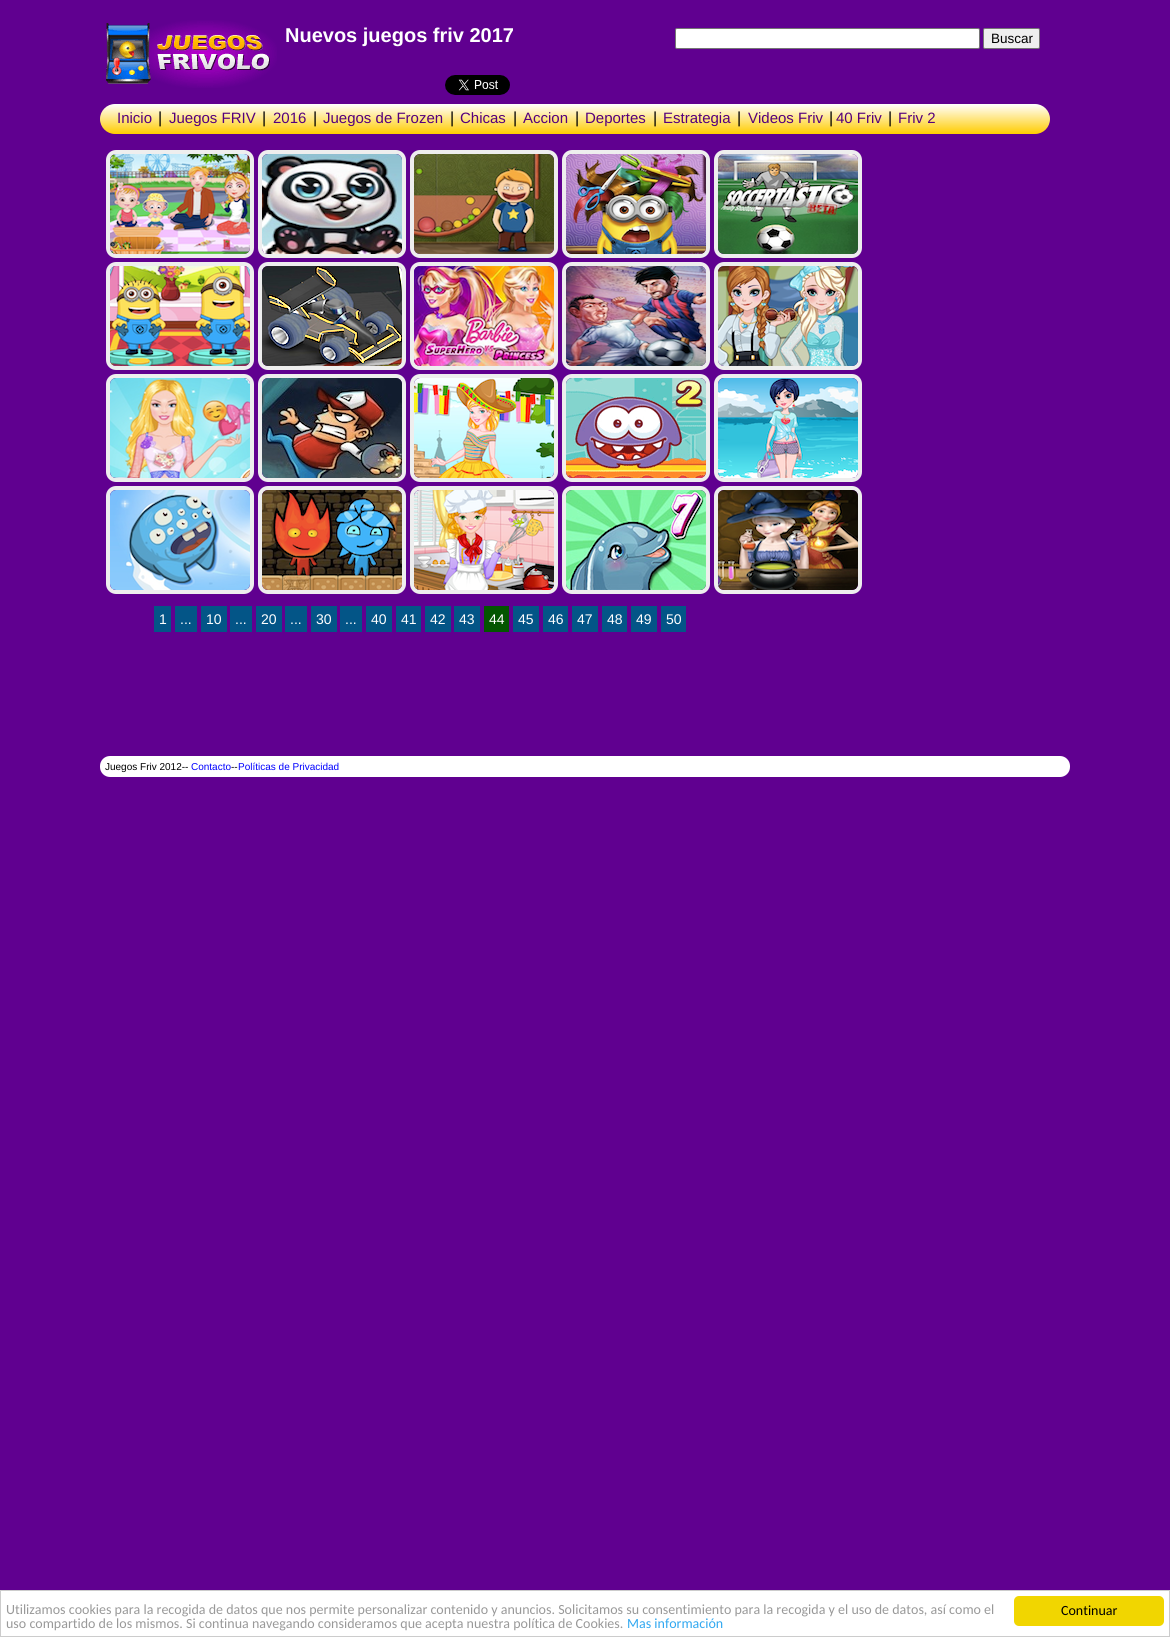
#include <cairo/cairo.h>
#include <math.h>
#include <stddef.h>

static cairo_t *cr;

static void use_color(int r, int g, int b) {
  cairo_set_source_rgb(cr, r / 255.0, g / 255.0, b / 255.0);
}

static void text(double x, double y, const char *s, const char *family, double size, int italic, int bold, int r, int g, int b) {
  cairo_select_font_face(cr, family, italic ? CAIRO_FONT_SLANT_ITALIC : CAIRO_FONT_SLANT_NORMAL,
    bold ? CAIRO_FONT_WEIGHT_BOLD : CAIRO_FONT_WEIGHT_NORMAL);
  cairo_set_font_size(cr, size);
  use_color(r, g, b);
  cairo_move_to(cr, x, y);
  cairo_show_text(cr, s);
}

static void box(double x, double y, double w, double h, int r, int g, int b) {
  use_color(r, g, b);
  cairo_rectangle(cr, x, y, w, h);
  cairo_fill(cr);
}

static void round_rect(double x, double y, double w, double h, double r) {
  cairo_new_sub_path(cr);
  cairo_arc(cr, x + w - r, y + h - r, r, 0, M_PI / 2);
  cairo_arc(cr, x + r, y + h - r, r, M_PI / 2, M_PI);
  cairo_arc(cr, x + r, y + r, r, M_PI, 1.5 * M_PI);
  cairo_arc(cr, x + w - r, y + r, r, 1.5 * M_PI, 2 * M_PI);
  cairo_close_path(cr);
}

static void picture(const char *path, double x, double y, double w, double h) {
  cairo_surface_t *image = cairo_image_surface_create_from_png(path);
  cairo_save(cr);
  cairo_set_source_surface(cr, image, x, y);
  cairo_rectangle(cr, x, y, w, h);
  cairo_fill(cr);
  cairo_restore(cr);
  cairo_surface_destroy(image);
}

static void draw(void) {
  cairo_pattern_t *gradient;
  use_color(96, 0, 144);
  cairo_paint(cr);
  picture("img_01.png", 106, 20, 171, 68);
  use_color(255, 255, 255);
  round_rect(675.5, 28.5, 304, 20, 1.5);
  cairo_fill_preserve(cr);
  use_color(118, 118, 118);
  cairo_set_line_width(cr, 1);
  cairo_stroke(cr);
  use_color(239, 239, 239);
  round_rect(983.5, 28.5, 56, 20, 1.5);
  cairo_fill_preserve(cr);
  use_color(118, 118, 118);
  cairo_stroke(cr);
  picture("img_02.png", 445, 75, 65, 20);
  gradient = cairo_pattern_create_linear(575, 104, 575, 134);
  cairo_pattern_add_color_stop_rgba(gradient, 0, 1, 1, 1, 1);
  cairo_pattern_add_color_stop_rgba(gradient, 1, 1, 0.8, 0, 1);
  cairo_set_source(cr, gradient);
  cairo_pattern_destroy(gradient);
  round_rect(100, 104, 950, 30, 15);
  cairo_fill(cr);
  round_rect(108, 152, 144, 104, 8);
  use_color(238, 238, 238);
  cairo_set_line_width(cr, 4);
  cairo_stroke(cr);
  picture("img_03.png", 110, 154, 140, 100);
  round_rect(260, 152, 144, 104, 8);
  cairo_stroke(cr);
  picture("img_04.png", 262, 154, 140, 100);
  round_rect(412, 152, 144, 104, 8);
  cairo_stroke(cr);
  picture("img_05.png", 414, 154, 140, 100);
  round_rect(564, 152, 144, 104, 8);
  cairo_stroke(cr);
  picture("img_06.png", 566, 154, 140, 100);
  round_rect(716, 152, 144, 104, 8);
  cairo_stroke(cr);
  picture("img_07.png", 718, 154, 140, 100);
  round_rect(108, 264, 144, 104, 8);
  cairo_stroke(cr);
  picture("img_08.png", 110, 266, 140, 100);
  round_rect(260, 264, 144, 104, 8);
  cairo_stroke(cr);
  picture("img_09.png", 262, 266, 140, 100);
  round_rect(412, 264, 144, 104, 8);
  cairo_stroke(cr);
  picture("img_10.png", 414, 266, 140, 100);
  round_rect(564, 264, 144, 104, 8);
  cairo_stroke(cr);
  picture("img_11.png", 566, 266, 140, 100);
  round_rect(716, 264, 144, 104, 8);
  cairo_stroke(cr);
  picture("img_12.png", 718, 266, 140, 100);
  round_rect(108, 376, 144, 104, 8);
  cairo_stroke(cr);
  picture("img_13.png", 110, 378, 140, 100);
  round_rect(260, 376, 144, 104, 8);
  cairo_stroke(cr);
  picture("img_14.png", 262, 378, 140, 100);
  round_rect(412, 376, 144, 104, 8);
  cairo_stroke(cr);
  picture("img_15.png", 414, 378, 140, 100);
  round_rect(564, 376, 144, 104, 8);
  cairo_stroke(cr);
  picture("img_16.png", 566, 378, 140, 100);
  round_rect(716, 376, 144, 104, 8);
  cairo_stroke(cr);
  picture("img_17.png", 718, 378, 140, 100);
  round_rect(108, 488, 144, 104, 8);
  cairo_stroke(cr);
  picture("img_18.png", 110, 490, 140, 100);
  round_rect(260, 488, 144, 104, 8);
  cairo_stroke(cr);
  picture("img_19.png", 262, 490, 140, 100);
  round_rect(412, 488, 144, 104, 8);
  cairo_stroke(cr);
  picture("img_20.png", 414, 490, 140, 100);
  round_rect(564, 488, 144, 104, 8);
  cairo_stroke(cr);
  picture("img_21.png", 566, 490, 140, 100);
  round_rect(716, 488, 144, 104, 8);
  cairo_stroke(cr);
  picture("img_22.png", 718, 490, 140, 100);
  box(154, 606, 17, 26, 3, 85, 135);
  box(175, 606, 22, 26, 3, 85, 135);
  box(201, 606, 26, 26, 3, 85, 135);
  box(230, 606, 22, 26, 3, 85, 135);
  box(256, 606, 26, 26, 3, 85, 135);
  box(285, 606, 22, 26, 3, 85, 135);
  box(311, 606, 26, 26, 3, 85, 135);
  box(340, 606, 22, 26, 3, 85, 135);
  box(366, 606, 26, 26, 3, 85, 135);
  box(396, 606, 25, 26, 3, 85, 135);
  box(425, 606, 26, 26, 3, 85, 135);
  box(454, 606, 26, 26, 3, 85, 135);
  box(484, 606, 25, 26, 3, 85, 0);
  box(513, 606, 26, 26, 3, 85, 135);
  box(543, 606, 25, 26, 3, 85, 135);
  box(572, 606, 26, 26, 3, 85, 135);
  box(602, 606, 25, 26, 3, 85, 135);
  box(631, 606, 26, 26, 3, 85, 135);
  box(661, 606, 25, 26, 3, 85, 135);
  use_color(255, 255, 255);
  round_rect(100, 756, 970, 21, 10);
  cairo_fill(cr);
  cairo_rectangle(cr, 0.5, 1590.5, 1169, 46);
  cairo_fill_preserve(cr);
  use_color(204, 204, 204);
  cairo_set_line_width(cr, 1);
  cairo_stroke(cr);
  use_color(241, 214, 0);
  round_rect(1014, 1596, 150, 30, 5);
  cairo_fill(cr);
  text(285, 42, "Nuevos juegos friv 2017", "Liberation Sans", 20, 0, 1, 255, 255, 255);
  text(991, 43, "Buscar", "Liberation Sans", 13.5, 0, 0, 0, 0, 0);
  text(117, 123, "Inicio", "Liberation Sans", 15, 0, 0, 84, 0, 125);
  text(158, 123, "|", "Liberation Sans", 16, 0, 0, 0, 0, 0);
  text(169, 123, "Juegos FRIV", "Liberation Sans", 15, 0, 0, 84, 0, 125);
  text(262, 123, "|", "Liberation Sans", 16, 0, 0, 0, 0, 0);
  text(273, 123, "2016", "Liberation Sans", 15, 0, 0, 84, 0, 125);
  text(313, 123, "|", "Liberation Sans", 16, 0, 0, 0, 0, 0);
  text(323, 123, "Juegos de Frozen", "Liberation Sans", 15, 0, 0, 84, 0, 125);
  text(450, 123, "|", "Liberation Sans", 16, 0, 0, 0, 0, 0);
  text(460, 123, "Chicas", "Liberation Sans", 15, 0, 0, 84, 0, 125);
  text(513, 123, "|", "Liberation Sans", 16, 0, 0, 0, 0, 0);
  text(523, 123, "Accion", "Liberation Sans", 15, 0, 0, 84, 0, 125);
  text(575, 123, "|", "Liberation Sans", 16, 0, 0, 0, 0, 0);
  text(585, 123, "Deportes", "Liberation Sans", 15, 0, 0, 84, 0, 125);
  text(653, 123, "|", "Liberation Sans", 16, 0, 0, 0, 0, 0);
  text(663, 123, "Estrategia", "Liberation Sans", 15, 0, 0, 84, 0, 125);
  text(737, 123, "|", "Liberation Sans", 16, 0, 0, 0, 0, 0);
  text(748, 123, "Videos Friv", "Liberation Sans", 15, 0, 0, 84, 0, 125);
  text(829, 123, "|", "Liberation Sans", 16, 0, 0, 0, 0, 0);
  text(836, 123, "40 Friv", "Liberation Sans", 15, 0, 0, 84, 0, 125);
  text(888, 123, "|", "Liberation Sans", 16, 0, 0, 0, 0, 0);
  text(898, 123, "Friv 2", "Liberation Sans", 15, 0, 0, 84, 0, 125);
  text(159, 624, "1", "Liberation Sans", 14, 0, 0, 255, 255, 255);
  text(180, 624, "...", "Liberation Sans", 14, 0, 0, 255, 255, 255);
  text(206, 624, "10", "Liberation Sans", 14, 0, 0, 255, 255, 255);
  text(235, 624, "...", "Liberation Sans", 14, 0, 0, 255, 255, 255);
  text(261, 624, "20", "Liberation Sans", 14, 0, 0, 255, 255, 255);
  text(290, 624, "...", "Liberation Sans", 14, 0, 0, 255, 255, 255);
  text(316, 624, "30", "Liberation Sans", 14, 0, 0, 255, 255, 255);
  text(345, 624, "...", "Liberation Sans", 14, 0, 0, 255, 255, 255);
  text(371, 624, "40", "Liberation Sans", 14, 0, 0, 255, 255, 255);
  text(401, 624, "41", "Liberation Sans", 14, 0, 0, 255, 255, 255);
  text(430, 624, "42", "Liberation Sans", 14, 0, 0, 255, 255, 255);
  text(459, 624, "43", "Liberation Sans", 14, 0, 0, 255, 255, 255);
  text(489, 624, "44", "Liberation Sans", 14, 0, 0, 255, 255, 255);
  text(518, 624, "45", "Liberation Sans", 14, 0, 0, 255, 255, 255);
  text(548, 624, "46", "Liberation Sans", 14, 0, 0, 255, 255, 255);
  text(577, 624, "47", "Liberation Sans", 14, 0, 0, 255, 255, 255);
  text(607, 624, "48", "Liberation Sans", 14, 0, 0, 255, 255, 255);
  text(636, 624, "49", "Liberation Sans", 14, 0, 0, 255, 255, 255);
  text(666, 624, "50", "Liberation Sans", 14, 0, 0, 255, 255, 255);
  text(105, 770, "Juegos Friv 2012--", "Liberation Sans", 10, 0, 0, 0, 0, 0);
  text(191, 770, "Contacto", "Liberation Sans", 10, 0, 0, 0, 0, 255);
  text(231, 770, "--", "Liberation Sans", 10, 0, 0, 0, 0, 0);
  text(238, 770, "Políticas de Privacidad", "Liberation Sans", 10, 0, 0, 0, 0, 255);
  text(6, 1614, "Utilizamos cookies para la recogida de datos que nos permite personalizar contenido y anuncios. Solicitamos su consentimiento para la recogida y el uso de datos, así como el", "Carlito", 14, 0, 0, 153, 153, 153);
  text(6, 1628, "uso compartido de los mismos. Si continua navegando consideramos que acepta nuestra política de Cookies.", "Carlito", 14, 0, 0, 153, 153, 153);
  text(627, 1628, "Mas información", "Carlito", 14, 0, 0, 49, 168, 240);
  text(1061, 1615, "Continuar", "Carlito", 14, 0, 0, 0, 0, 0);
}

int main(void) {
  cairo_surface_t *surface = cairo_image_surface_create(CAIRO_FORMAT_RGB24, 1170, 1637);
  cr = cairo_create(surface);
  cairo_font_options_t *options = cairo_font_options_create();
  cairo_font_options_set_hint_metrics(options, CAIRO_HINT_METRICS_OFF);
  cairo_font_options_set_hint_style(options, CAIRO_HINT_STYLE_NONE);
  cairo_set_font_options(cr, options);
  cairo_set_miter_limit(cr, 4);
  draw();
  cairo_surface_write_to_png(surface, "out.png");
  cairo_font_options_destroy(options);
  cairo_destroy(cr);
  cairo_surface_destroy(surface);
  return 0;
}
